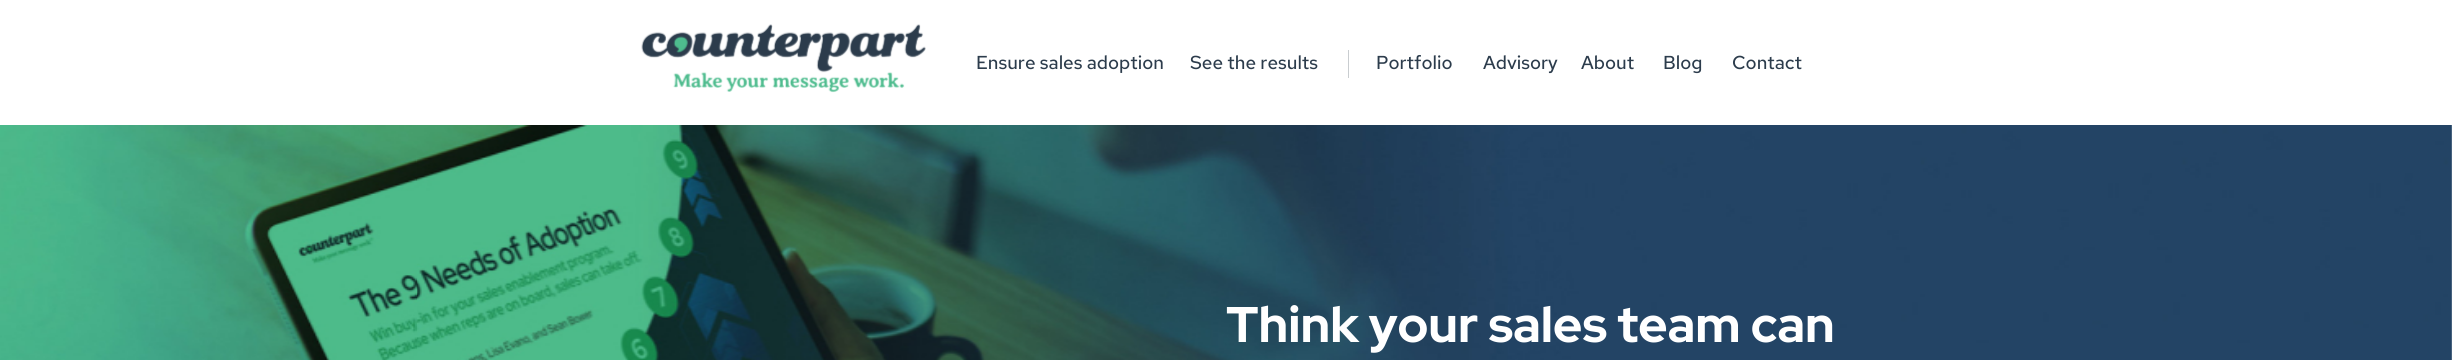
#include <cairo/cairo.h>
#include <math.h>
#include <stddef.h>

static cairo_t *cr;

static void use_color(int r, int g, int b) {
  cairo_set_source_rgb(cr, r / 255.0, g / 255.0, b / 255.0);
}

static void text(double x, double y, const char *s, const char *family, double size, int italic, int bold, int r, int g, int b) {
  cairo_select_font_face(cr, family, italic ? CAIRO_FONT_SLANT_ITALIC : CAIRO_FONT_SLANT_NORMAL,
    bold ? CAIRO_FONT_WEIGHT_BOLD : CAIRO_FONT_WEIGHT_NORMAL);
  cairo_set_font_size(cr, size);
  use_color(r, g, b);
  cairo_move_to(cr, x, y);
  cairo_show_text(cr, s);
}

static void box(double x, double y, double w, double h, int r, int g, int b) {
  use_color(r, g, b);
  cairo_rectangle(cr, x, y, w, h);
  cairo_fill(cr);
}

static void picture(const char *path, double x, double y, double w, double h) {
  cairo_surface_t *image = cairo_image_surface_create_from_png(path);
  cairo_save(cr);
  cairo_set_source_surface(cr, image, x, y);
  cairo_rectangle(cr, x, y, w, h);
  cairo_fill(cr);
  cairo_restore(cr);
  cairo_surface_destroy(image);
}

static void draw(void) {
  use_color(255, 255, 255);
  cairo_paint(cr);
  picture("img_01.png", 641, 24, 285, 69);
  box(1348, 50, 1, 28, 201, 205, 208);
  picture("img_02.png", 0, 125, 2452, 235);
  text(976, 69, "Ensure sales adoption", "Red Hat Text Medium", 18.75, 0, 0, 44, 60, 76);
  text(1190, 69, "See the results", "Red Hat Text Medium", 18.75, 0, 0, 44, 60, 76);
  text(1376, 69, "Portfolio", "Red Hat Text Medium", 18.75, 0, 0, 44, 60, 76);
  text(1483, 69, "Advisory", "Red Hat Text Medium", 18.75, 0, 0, 44, 60, 76);
  text(1581, 69, "About", "Red Hat Text Medium", 18.75, 0, 0, 44, 60, 76);
  text(1663, 69, "Blog", "Red Hat Text Medium", 18.75, 0, 0, 44, 60, 76);
  text(1732, 69, "Contact", "Red Hat Text Medium", 18.75, 0, 0, 44, 60, 76);
  text(1226, 342, "Think your sales team can", "Red Hat Display ExtraBold", 50, 0, 0, 255, 255, 255);
}

int main(void) {
  cairo_surface_t *surface = cairo_image_surface_create(CAIRO_FORMAT_RGB24, 2452, 360);
  cr = cairo_create(surface);
  cairo_font_options_t *options = cairo_font_options_create();
  cairo_font_options_set_hint_metrics(options, CAIRO_HINT_METRICS_OFF);
  cairo_font_options_set_hint_style(options, CAIRO_HINT_STYLE_NONE);
  cairo_set_font_options(cr, options);
  cairo_set_miter_limit(cr, 4);
  draw();
  cairo_surface_write_to_png(surface, "out.png");
  cairo_font_options_destroy(options);
  cairo_destroy(cr);
  cairo_surface_destroy(surface);
  return 0;
}
